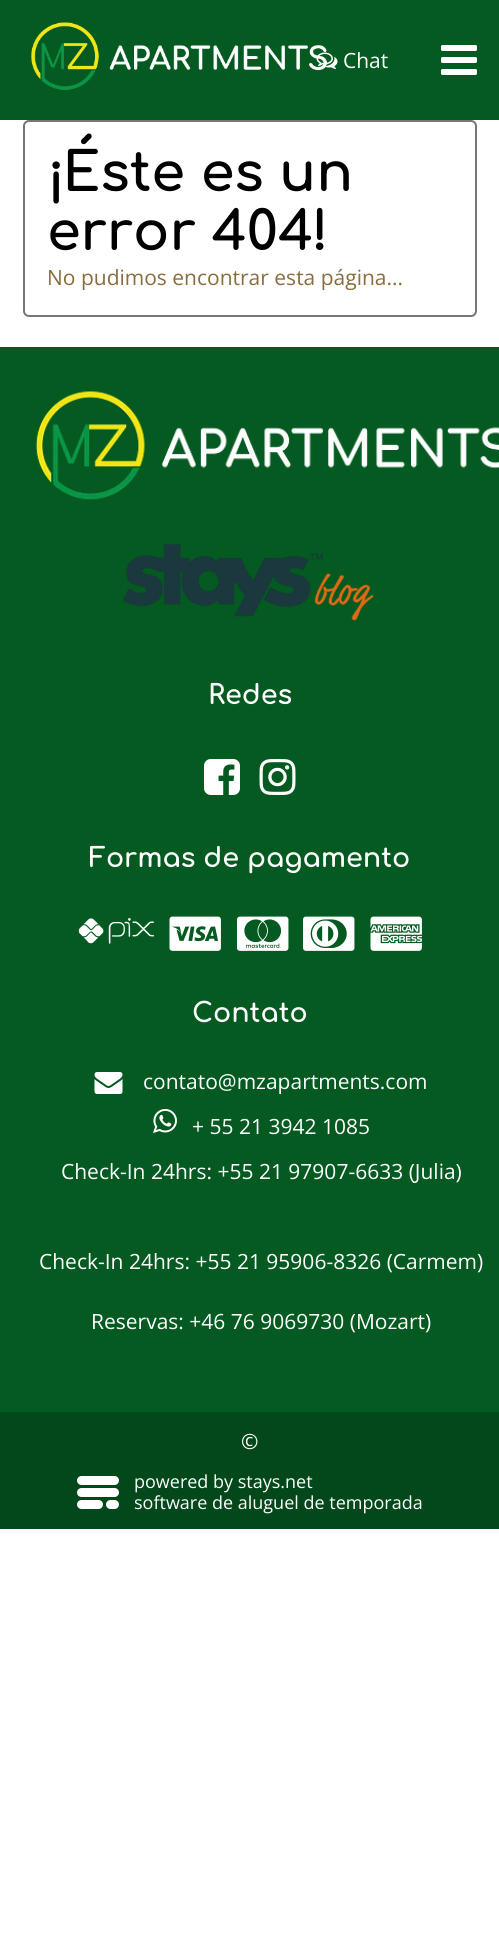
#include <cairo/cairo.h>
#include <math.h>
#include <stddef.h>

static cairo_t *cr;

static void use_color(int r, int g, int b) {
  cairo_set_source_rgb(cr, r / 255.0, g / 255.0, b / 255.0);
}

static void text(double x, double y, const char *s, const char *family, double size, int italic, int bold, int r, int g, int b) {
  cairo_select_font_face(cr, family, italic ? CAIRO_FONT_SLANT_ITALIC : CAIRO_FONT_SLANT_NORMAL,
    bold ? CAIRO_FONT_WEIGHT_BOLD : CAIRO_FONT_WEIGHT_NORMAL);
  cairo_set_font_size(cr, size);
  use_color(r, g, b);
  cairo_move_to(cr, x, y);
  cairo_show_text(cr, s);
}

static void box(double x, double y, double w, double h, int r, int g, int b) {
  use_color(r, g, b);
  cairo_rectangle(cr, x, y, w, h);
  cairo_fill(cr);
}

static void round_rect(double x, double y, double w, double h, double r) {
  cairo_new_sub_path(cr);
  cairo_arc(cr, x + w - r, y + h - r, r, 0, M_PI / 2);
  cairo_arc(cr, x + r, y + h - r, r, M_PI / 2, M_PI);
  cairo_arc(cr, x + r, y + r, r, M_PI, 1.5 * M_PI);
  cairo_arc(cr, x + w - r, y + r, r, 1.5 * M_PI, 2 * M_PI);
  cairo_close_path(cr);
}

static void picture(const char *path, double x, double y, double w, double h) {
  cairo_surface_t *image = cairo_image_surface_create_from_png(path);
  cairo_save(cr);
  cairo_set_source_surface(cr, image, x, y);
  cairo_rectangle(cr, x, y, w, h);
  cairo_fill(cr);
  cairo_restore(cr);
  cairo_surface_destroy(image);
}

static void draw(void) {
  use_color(255, 255, 255);
  cairo_paint(cr);
  box(0, 0, 499, 120, 4, 90, 32);
  picture("img_01.png", 31, 22, 296, 68);
  picture("img_02.png", 316, 52, 22, 17);
  picture("img_03.png", 441, 45, 36, 30);
  round_rect(24, 121, 452, 195, 5);
  use_color(119, 119, 119);
  cairo_stroke(cr);
  box(0, 347, 499, 1065, 4, 90, 32);
  picture("img_04.png", 35, 391, 464, 109);
  picture("img_05.png", 123, 544, 251, 77);
  picture("img_06.png", 204, 759, 36, 36);
  picture("img_07.png", 259, 759, 37, 36);
  picture("img_08.png", 78, 918, 77, 26);
  picture("img_09.png", 169, 916, 52, 35);
  picture("img_10.png", 237, 916, 52, 35);
  picture("img_11.png", 303, 916, 52, 35);
  picture("img_12.png", 370, 916, 52, 35);
  picture("img_13.png", 94, 1072, 29, 22);
  picture("img_14.png", 153, 1108, 24, 25);
  box(0, 1412, 499, 117, 3, 72, 26);
  use_color(255, 255, 255);
  round_rect(77, 1488, 42, 9, 4.5);
  cairo_fill(cr);
  round_rect(77, 1476, 42, 9, 4.5);
  cairo_fill(cr);
  round_rect(106, 1500, 13, 9, 4.5);
  cairo_fill(cr);
  round_rect(77, 1500, 26, 9, 4.5);
  cairo_fill(cr);
  text(343, 68, "Chat", "Open Sans", 21, 0, 0, 255, 255, 255);
  text(47, 191, "¡Éste es un", "Comfortaa", 54, 0, 1, 0, 0, 0);
  text(47, 250, "error 404!", "Comfortaa", 54, 0, 1, 0, 0, 0);
  text(47, 285, "No pudimos encontrar esta página...", "Open Sans", 21, 0, 0, 138, 109, 59);
  text(208, 704, "Redes", "Comfortaa", 27, 0, 1, 255, 255, 255);
  text(89, 867, "Formas de pagamento", "Comfortaa", 27, 0, 1, 255, 255, 255);
  text(192, 1022, "Contato", "Comfortaa", 27, 0, 1, 255, 255, 255);
  text(143, 1089, "contato@mzapartments.com", "Open Sans", 21, 0, 0, 255, 255, 255);
  text(192, 1134, "+ 55 21 3942 1085", "Open Sans", 21, 0, 0, 255, 255, 255);
  text(61, 1179, "Check-In 24hrs: +55 21 97907-6633 (Julia)", "Open Sans", 21, 0, 0, 255, 255, 255);
  text(39, 1269, "Check-In 24hrs: +55 21 95906-8326 (Carmem)", "Open Sans", 21, 0, 0, 255, 255, 255);
  text(91, 1329, "Reservas: +46 76 9069730 (Mozart)", "Open Sans", 21, 0, 0, 255, 255, 255);
  text(241, 1449, "©", "Open Sans", 21, 0, 0, 255, 255, 255);
  text(134, 1488, "powered by stays.net", "Open Sans", 18, 0, 0, 255, 255, 255);
  text(134, 1509, "software de aluguel de temporada", "Open Sans", 18, 0, 0, 255, 255, 255);
}

int main(void) {
  cairo_surface_t *surface = cairo_image_surface_create(CAIRO_FORMAT_RGB24, 499, 1943);
  cr = cairo_create(surface);
  cairo_font_options_t *options = cairo_font_options_create();
  cairo_font_options_set_hint_metrics(options, CAIRO_HINT_METRICS_OFF);
  cairo_font_options_set_hint_style(options, CAIRO_HINT_STYLE_NONE);
  cairo_set_font_options(cr, options);
  cairo_set_miter_limit(cr, 4);
  draw();
  cairo_surface_write_to_png(surface, "out.png");
  cairo_font_options_destroy(options);
  cairo_destroy(cr);
  cairo_surface_destroy(surface);
  return 0;
}
